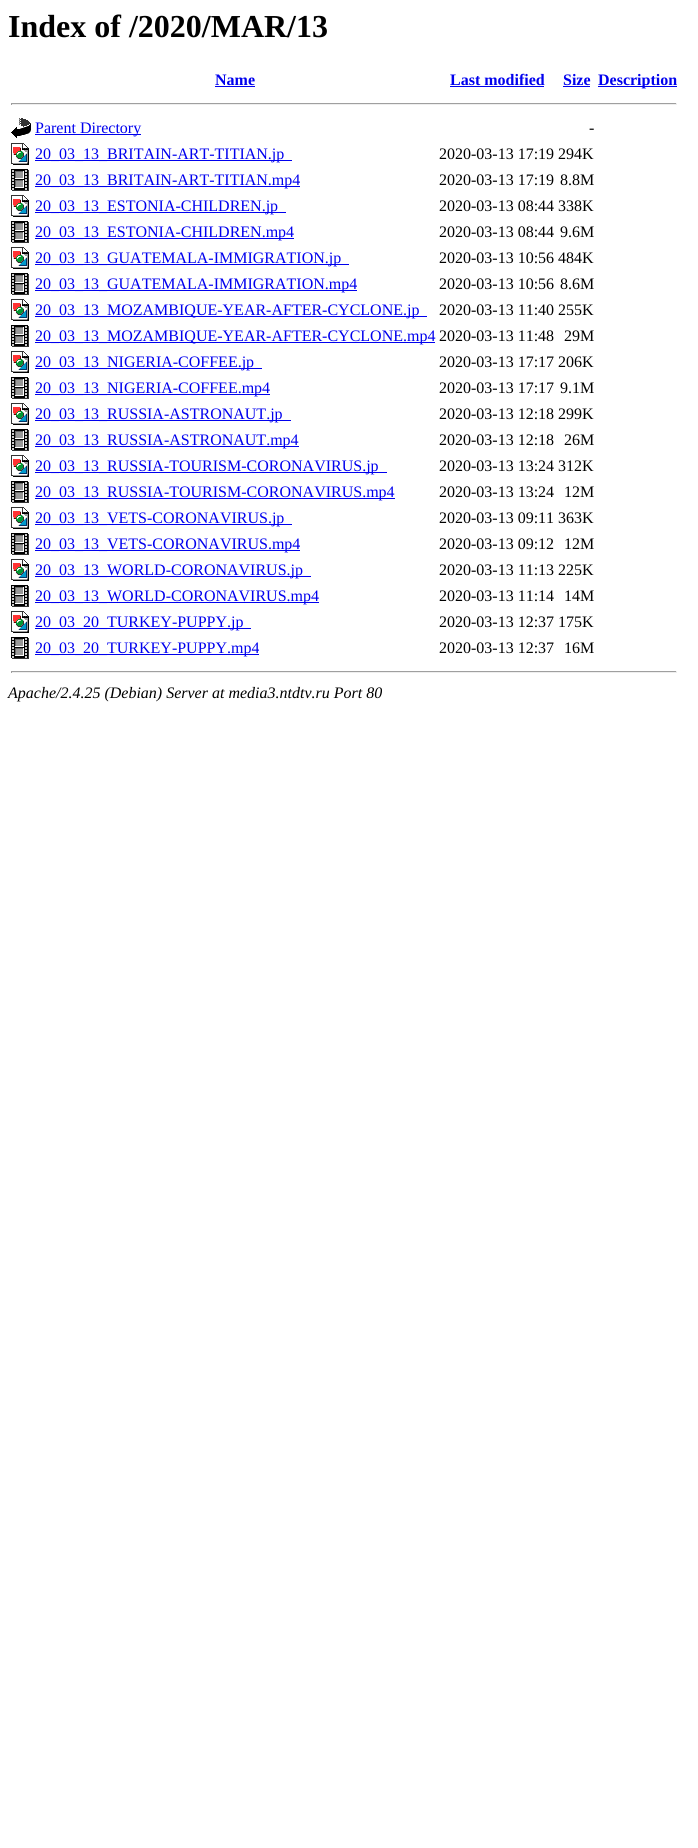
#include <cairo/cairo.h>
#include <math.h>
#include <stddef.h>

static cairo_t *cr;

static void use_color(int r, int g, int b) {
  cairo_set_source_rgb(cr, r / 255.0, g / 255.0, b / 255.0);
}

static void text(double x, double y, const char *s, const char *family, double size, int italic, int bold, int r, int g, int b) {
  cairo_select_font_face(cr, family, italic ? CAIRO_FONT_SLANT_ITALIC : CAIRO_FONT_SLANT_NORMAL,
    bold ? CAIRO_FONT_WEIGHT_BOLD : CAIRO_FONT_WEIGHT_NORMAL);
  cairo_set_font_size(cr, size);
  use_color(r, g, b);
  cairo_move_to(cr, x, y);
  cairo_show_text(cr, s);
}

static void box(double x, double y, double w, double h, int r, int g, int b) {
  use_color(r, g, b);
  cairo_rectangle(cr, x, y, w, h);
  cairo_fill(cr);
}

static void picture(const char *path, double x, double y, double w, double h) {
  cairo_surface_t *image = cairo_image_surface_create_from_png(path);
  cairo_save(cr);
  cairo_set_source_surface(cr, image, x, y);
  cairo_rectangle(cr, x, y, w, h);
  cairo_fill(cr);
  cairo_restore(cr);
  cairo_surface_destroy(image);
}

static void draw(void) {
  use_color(255, 255, 255);
  cairo_paint(cr);
  box(215, 86, 40, 1, 0, 0, 238);
  box(450, 86, 94, 1, 0, 0, 238);
  box(563, 86, 27, 1, 0, 0, 238);
  box(598, 86, 79, 1, 0, 0, 238);
  box(11, 103, 666, 1, 159, 159, 159);
  box(676, 103, 1, 2, 238, 238, 238);
  box(11, 104, 666, 1, 238, 238, 238);
  box(11, 103, 1, 2, 159, 159, 159);
  picture("img_01.png", 11, 118, 20, 20);
  box(35, 134, 106, 1, 0, 0, 238);
  picture("img_02.png", 11, 143, 18, 22);
  box(35, 160, 257, 1, 0, 0, 238);
  picture("img_03.png", 11, 169, 18, 22);
  box(35, 186, 265, 1, 0, 0, 238);
  picture("img_02.png", 11, 195, 18, 22);
  box(35, 212, 251, 1, 0, 0, 238);
  picture("img_03.png", 11, 221, 18, 22);
  box(35, 238, 259, 1, 0, 0, 238);
  picture("img_02.png", 11, 247, 18, 22);
  box(35, 264, 314, 1, 0, 0, 238);
  picture("img_03.png", 11, 273, 18, 22);
  box(35, 290, 322, 1, 0, 0, 238);
  picture("img_02.png", 11, 299, 18, 22);
  box(35, 316, 392, 1, 0, 0, 238);
  picture("img_03.png", 11, 325, 18, 22);
  box(35, 342, 400, 1, 0, 0, 238);
  picture("img_02.png", 11, 351, 18, 22);
  box(35, 368, 227, 1, 0, 0, 238);
  picture("img_03.png", 11, 377, 18, 22);
  box(35, 394, 235, 1, 0, 0, 238);
  picture("img_02.png", 11, 403, 18, 22);
  box(35, 420, 256, 1, 0, 0, 238);
  picture("img_03.png", 11, 429, 18, 22);
  box(35, 446, 264, 1, 0, 0, 238);
  picture("img_02.png", 11, 455, 18, 22);
  box(35, 472, 352, 1, 0, 0, 238);
  picture("img_03.png", 11, 481, 18, 22);
  box(35, 498, 360, 1, 0, 0, 238);
  picture("img_02.png", 11, 507, 18, 22);
  box(35, 524, 257, 1, 0, 0, 238);
  picture("img_03.png", 11, 533, 18, 22);
  box(35, 550, 265, 1, 0, 0, 238);
  picture("img_02.png", 11, 559, 18, 22);
  box(35, 576, 276, 1, 0, 0, 238);
  picture("img_03.png", 11, 585, 18, 22);
  box(35, 602, 284, 1, 0, 0, 238);
  picture("img_02.png", 11, 611, 18, 22);
  box(35, 628, 216, 1, 0, 0, 238);
  picture("img_03.png", 11, 637, 18, 22);
  box(35, 654, 224, 1, 0, 0, 238);
  box(11, 671, 666, 1, 159, 159, 159);
  box(676, 671, 1, 2, 238, 238, 238);
  box(11, 672, 666, 1, 238, 238, 238);
  box(11, 671, 1, 2, 159, 159, 159);
  text(8, 37, "Index of /2020/MAR/13", "Liberation Serif", 32, 0, 1, 0, 0, 0);
  text(215, 85, "Name", "Liberation Serif", 16, 0, 1, 0, 0, 238);
  text(450, 85, "Last modified", "Liberation Serif", 16, 0, 1, 0, 0, 238);
  text(563, 85, "Size", "Liberation Serif", 16, 0, 1, 0, 0, 238);
  text(598, 85, "Description", "Liberation Serif", 16, 0, 1, 0, 0, 238);
  text(35, 133, "Parent Directory", "Liberation Serif", 16, 0, 0, 0, 0, 238);
  text(589, 133, "-", "Liberation Serif", 16, 0, 0, 0, 0, 0);
  text(35, 159, "20_03_13_BRITAIN-ART-TITIAN.jp", "Liberation Serif", 16, 0, 0, 0, 0, 238);
  text(439, 159, "2020-03-13 17:19 294K", "Liberation Serif", 16, 0, 0, 0, 0, 0);
  text(35, 185, "20_03_13_BRITAIN-ART-TITIAN.mp4", "Liberation Serif", 16, 0, 0, 0, 0, 238);
  text(439, 185, "2020-03-13 17:19", "Liberation Serif", 16, 0, 0, 0, 0, 0);
  text(560, 185, "8.8M", "Liberation Serif", 16, 0, 0, 0, 0, 0);
  text(35, 211, "20_03_13_ESTONIA-CHILDREN.jp", "Liberation Serif", 16, 0, 0, 0, 0, 238);
  text(439, 211, "2020-03-13 08:44 338K", "Liberation Serif", 16, 0, 0, 0, 0, 0);
  text(35, 237, "20_03_13_ESTONIA-CHILDREN.mp4", "Liberation Serif", 16, 0, 0, 0, 0, 238);
  text(439, 237, "2020-03-13 08:44", "Liberation Serif", 16, 0, 0, 0, 0, 0);
  text(560, 237, "9.6M", "Liberation Serif", 16, 0, 0, 0, 0, 0);
  text(35, 263, "20_03_13_GUATEMALA-IMMIGRATION.jp", "Liberation Serif", 16, 0, 0, 0, 0, 238);
  text(439, 263, "2020-03-13 10:56 484K", "Liberation Serif", 16, 0, 0, 0, 0, 0);
  text(35, 289, "20_03_13_GUATEMALA-IMMIGRATION.mp4", "Liberation Serif", 16, 0, 0, 0, 0, 238);
  text(439, 289, "2020-03-13 10:56", "Liberation Serif", 16, 0, 0, 0, 0, 0);
  text(560, 289, "8.6M", "Liberation Serif", 16, 0, 0, 0, 0, 0);
  text(35, 315, "20_03_13_MOZAMBIQUE-YEAR-AFTER-CYCLONE.jp", "Liberation Serif", 16, 0, 0, 0, 0, 238);
  text(439, 315, "2020-03-13 11:40 255K", "Liberation Serif", 16, 0, 0, 0, 0, 0);
  text(35, 341, "20_03_13_MOZAMBIQUE-YEAR-AFTER-CYCLONE.mp4", "Liberation Serif", 16, 0, 0, 0, 0, 238);
  text(439, 341, "2020-03-13 11:48", "Liberation Serif", 16, 0, 0, 0, 0, 0);
  text(564, 341, "29M", "Liberation Serif", 16, 0, 0, 0, 0, 0);
  text(35, 367, "20_03_13_NIGERIA-COFFEE.jp", "Liberation Serif", 16, 0, 0, 0, 0, 238);
  text(439, 367, "2020-03-13 17:17 206K", "Liberation Serif", 16, 0, 0, 0, 0, 0);
  text(35, 393, "20_03_13_NIGERIA-COFFEE.mp4", "Liberation Serif", 16, 0, 0, 0, 0, 238);
  text(439, 393, "2020-03-13 17:17", "Liberation Serif", 16, 0, 0, 0, 0, 0);
  text(560, 393, "9.1M", "Liberation Serif", 16, 0, 0, 0, 0, 0);
  text(35, 419, "20_03_13_RUSSIA-ASTRONAUT.jp", "Liberation Serif", 16, 0, 0, 0, 0, 238);
  text(439, 419, "2020-03-13 12:18 299K", "Liberation Serif", 16, 0, 0, 0, 0, 0);
  text(35, 445, "20_03_13_RUSSIA-ASTRONAUT.mp4", "Liberation Serif", 16, 0, 0, 0, 0, 238);
  text(439, 445, "2020-03-13 12:18", "Liberation Serif", 16, 0, 0, 0, 0, 0);
  text(564, 445, "26M", "Liberation Serif", 16, 0, 0, 0, 0, 0);
  text(35, 471, "20_03_13_RUSSIA-TOURISM-CORONAVIRUS.jp", "Liberation Serif", 16, 0, 0, 0, 0, 238);
  text(439, 471, "2020-03-13 13:24 312K", "Liberation Serif", 16, 0, 0, 0, 0, 0);
  text(35, 497, "20_03_13_RUSSIA-TOURISM-CORONAVIRUS.mp4", "Liberation Serif", 16, 0, 0, 0, 0, 238);
  text(439, 497, "2020-03-13 13:24", "Liberation Serif", 16, 0, 0, 0, 0, 0);
  text(564, 497, "12M", "Liberation Serif", 16, 0, 0, 0, 0, 0);
  text(35, 523, "20_03_13_VETS-CORONAVIRUS.jp", "Liberation Serif", 16, 0, 0, 0, 0, 238);
  text(439, 523, "2020-03-13 09:11 363K", "Liberation Serif", 16, 0, 0, 0, 0, 0);
  text(35, 549, "20_03_13_VETS-CORONAVIRUS.mp4", "Liberation Serif", 16, 0, 0, 0, 0, 238);
  text(439, 549, "2020-03-13 09:12", "Liberation Serif", 16, 0, 0, 0, 0, 0);
  text(564, 549, "12M", "Liberation Serif", 16, 0, 0, 0, 0, 0);
  text(35, 575, "20_03_13_WORLD-CORONAVIRUS.jp", "Liberation Serif", 16, 0, 0, 0, 0, 238);
  text(439, 575, "2020-03-13 11:13 225K", "Liberation Serif", 16, 0, 0, 0, 0, 0);
  text(35, 601, "20_03_13_WORLD-CORONAVIRUS.mp4", "Liberation Serif", 16, 0, 0, 0, 0, 238);
  text(439, 601, "2020-03-13 11:14", "Liberation Serif", 16, 0, 0, 0, 0, 0);
  text(564, 601, "14M", "Liberation Serif", 16, 0, 0, 0, 0, 0);
  text(35, 627, "20_03_20_TURKEY-PUPPY.jp", "Liberation Serif", 16, 0, 0, 0, 0, 238);
  text(439, 627, "2020-03-13 12:37 175K", "Liberation Serif", 16, 0, 0, 0, 0, 0);
  text(35, 653, "20_03_20_TURKEY-PUPPY.mp4", "Liberation Serif", 16, 0, 0, 0, 0, 238);
  text(439, 653, "2020-03-13 12:37", "Liberation Serif", 16, 0, 0, 0, 0, 0);
  text(564, 653, "16M", "Liberation Serif", 16, 0, 0, 0, 0, 0);
  text(8, 698, "Apache/2.4.25 (Debian) Server at media3.ntdtv.ru Port 80", "Liberation Serif", 16, 1, 0, 0, 0, 0);
}

int main(void) {
  cairo_surface_t *surface = cairo_image_surface_create(CAIRO_FORMAT_RGB24, 698, 1848);
  cr = cairo_create(surface);
  cairo_font_options_t *options = cairo_font_options_create();
  cairo_font_options_set_hint_metrics(options, CAIRO_HINT_METRICS_OFF);
  cairo_font_options_set_hint_style(options, CAIRO_HINT_STYLE_NONE);
  cairo_set_font_options(cr, options);
  cairo_set_miter_limit(cr, 4);
  draw();
  cairo_surface_write_to_png(surface, "out.png");
  cairo_font_options_destroy(options);
  cairo_destroy(cr);
  cairo_surface_destroy(surface);
  return 0;
}
